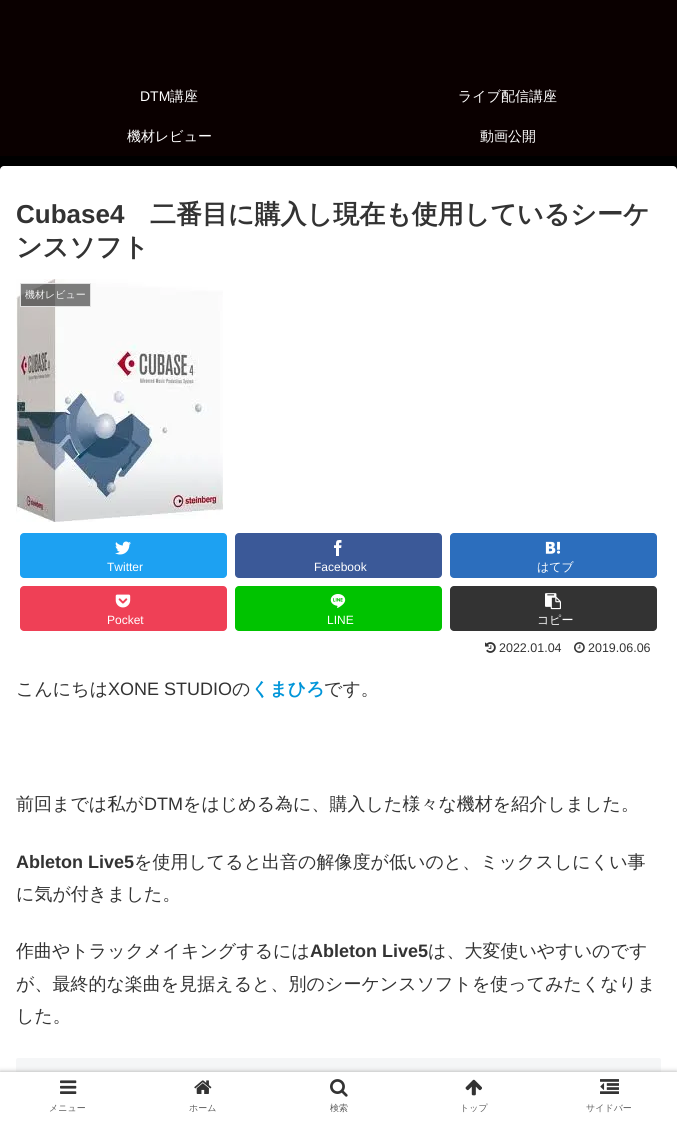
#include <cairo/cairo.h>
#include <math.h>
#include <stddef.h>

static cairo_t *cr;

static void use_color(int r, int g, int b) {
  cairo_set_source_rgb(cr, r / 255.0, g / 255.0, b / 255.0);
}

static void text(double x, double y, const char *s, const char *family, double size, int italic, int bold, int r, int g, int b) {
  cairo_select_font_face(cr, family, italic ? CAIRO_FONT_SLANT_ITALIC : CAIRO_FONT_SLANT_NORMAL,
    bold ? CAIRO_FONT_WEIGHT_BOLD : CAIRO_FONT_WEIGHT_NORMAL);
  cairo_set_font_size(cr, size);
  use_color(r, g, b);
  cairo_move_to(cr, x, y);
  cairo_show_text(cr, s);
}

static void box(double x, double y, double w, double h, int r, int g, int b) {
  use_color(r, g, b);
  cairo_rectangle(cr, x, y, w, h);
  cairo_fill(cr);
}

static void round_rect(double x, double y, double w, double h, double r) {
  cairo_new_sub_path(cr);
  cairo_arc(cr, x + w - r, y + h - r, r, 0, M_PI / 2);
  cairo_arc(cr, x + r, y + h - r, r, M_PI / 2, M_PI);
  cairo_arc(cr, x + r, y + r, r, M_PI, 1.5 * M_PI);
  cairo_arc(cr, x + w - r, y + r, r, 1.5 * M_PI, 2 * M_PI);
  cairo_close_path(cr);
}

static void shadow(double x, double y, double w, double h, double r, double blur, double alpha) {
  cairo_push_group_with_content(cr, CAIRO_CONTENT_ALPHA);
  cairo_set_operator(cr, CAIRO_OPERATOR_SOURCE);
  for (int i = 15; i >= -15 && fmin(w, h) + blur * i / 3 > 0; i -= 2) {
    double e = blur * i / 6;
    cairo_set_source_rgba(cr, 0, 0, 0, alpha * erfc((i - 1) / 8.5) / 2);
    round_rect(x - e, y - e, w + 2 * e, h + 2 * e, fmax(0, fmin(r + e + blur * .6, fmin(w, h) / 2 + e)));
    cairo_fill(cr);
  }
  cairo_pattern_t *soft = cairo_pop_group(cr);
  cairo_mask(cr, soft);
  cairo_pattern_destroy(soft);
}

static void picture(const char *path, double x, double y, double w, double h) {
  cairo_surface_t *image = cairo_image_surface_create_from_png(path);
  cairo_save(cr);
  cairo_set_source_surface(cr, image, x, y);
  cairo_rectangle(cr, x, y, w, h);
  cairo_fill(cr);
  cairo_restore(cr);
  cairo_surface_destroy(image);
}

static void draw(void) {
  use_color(0, 0, 0);
  cairo_paint(cr);
  box(0, 0, 677, 156, 10, 0, 0);
  use_color(255, 255, 255);
  round_rect(0, 166, 677, 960, 4);
  cairo_fill(cr);
  picture("img_01.png", 16, 279, 207, 243);
  cairo_set_source_rgba(cr, 0.2, 0.2, 0.2, 0.63);
  cairo_rectangle(cr, 20, 283, 71, 24);
  cairo_fill(cr);
  cairo_rectangle(cr, 20.5, 283.5, 70, 23);
  cairo_set_source_rgba(cr, 0.933, 0.933, 0.933, 0.9);
  cairo_set_line_width(cr, 1);
  cairo_stroke(cr);
  use_color(29, 161, 242);
  round_rect(20, 533, 207, 45, 4);
  cairo_fill(cr);
  picture("img_02.png", 115, 541, 16, 14);
  use_color(59, 89, 152);
  round_rect(235, 533, 207, 45, 4);
  cairo_fill(cr);
  picture("img_03.png", 334, 540, 8, 16);
  use_color(44, 110, 189);
  round_rect(450, 533, 207, 45, 4);
  cairo_fill(cr);
  picture("img_04.png", 545, 541, 16, 13);
  use_color(239, 64, 86);
  round_rect(20, 586, 207, 45, 4);
  cairo_fill(cr);
  picture("img_05.png", 115, 594, 16, 14);
  use_color(0, 195, 0);
  round_rect(235, 586, 207, 45, 4);
  cairo_fill(cr);
  picture("img_06.png", 330, 594, 16, 14);
  use_color(51, 51, 51);
  round_rect(450, 586, 207, 45, 4);
  cairo_fill(cr);
  picture("img_07.png", 545, 593, 16, 17);
  picture("img_08.png", 485, 642, 11, 11);
  picture("img_09.png", 574, 642, 11, 11);
  use_color(245, 246, 247);
  round_rect(16, 1058, 645, 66, 2);
  cairo_fill(cr);
  use_color(169, 169, 169);
  shadow(0, 1072, 677, 50, 0, 2.5, 1);
  box(0, 1072, 677, 50, 255, 255, 255);
  picture("img_10.png", 60, 1080, 17, 14);
  picture("img_11.png", 194, 1080, 18, 14);
  picture("img_12.png", 330, 1079, 18, 18);
  picture("img_13.png", 465, 1079, 17, 17);
  picture("img_14.png", 600, 1079, 19, 15);
  text(140, 101, "DTM", "Liberation Sans", 14, 0, 0, 255, 255, 255);
  text(170, 101, "講座", "WenQuanYi Zen Hei Medium", 14, 0, 0, 255, 255, 255);
  text(458, 101, "ライブ配信講座", "WenQuanYi Zen Hei Medium", 14, 0, 0, 255, 255, 255);
  text(127, 141, "機材レビュー", "WenQuanYi Zen Hei Medium", 14, 0, 0, 255, 255, 255);
  text(480, 141, "動画公開", "WenQuanYi Zen Hei Medium", 14, 0, 0, 255, 255, 255);
  text(16, 223, "Cubase4", "Liberation Sans", 26, 0, 1, 51, 51, 51);
  text(150, 223, "二番目に購入し現在も使用しているシーケ", "WenQuanYi Zen Hei", 26, 0, 1, 51, 51, 51);
  text(16, 256, "ンスソフト", "WenQuanYi Zen Hei", 26, 0, 1, 51, 51, 51);
  text(25, 298, "機材レビュー", "WenQuanYi Zen Hei Medium", 10, 0, 0, 241, 241, 241);
  text(107, 571, "Twitter", "Liberation Sans", 12, 0, 0, 255, 255, 255);
  text(314, 571, "Facebook", "Liberation Sans", 12, 0, 0, 255, 255, 255);
  text(537, 571, "はてブ", "WenQuanYi Zen Hei Medium", 12, 0, 0, 255, 255, 255);
  text(107, 624, "Pocket", "Liberation Sans", 12, 0, 0, 255, 255, 255);
  text(327, 624, "LINE", "Liberation Sans", 12, 0, 0, 255, 255, 255);
  text(537, 624, "コピー", "WenQuanYi Zen Hei Medium", 12, 0, 0, 255, 255, 255);
  text(499, 652, "2022.01.04", "Liberation Sans", 12.5, 0, 0, 51, 51, 51);
  text(588, 652, "2019.06.06", "Liberation Sans", 12.5, 0, 0, 51, 51, 51);
  text(16, 695, "こんにちは", "WenQuanYi Zen Hei Medium", 18, 0, 0, 51, 51, 51);
  text(108, 695, "XONE STUDIO", "Liberation Sans", 18, 0, 0, 51, 51, 51);
  text(232, 695, "の", "WenQuanYi Zen Hei Medium", 18, 0, 0, 51, 51, 51);
  text(251, 695, "くまひろ", "WenQuanYi Zen Hei", 18, 0, 1, 0, 149, 217);
  text(324, 695, "です。", "WenQuanYi Zen Hei Medium", 18, 0, 0, 51, 51, 51);
  text(16, 810, "前回までは私が", "WenQuanYi Zen Hei Medium", 18, 0, 0, 51, 51, 51);
  text(144, 810, "DTM", "Liberation Sans", 18, 0, 0, 51, 51, 51);
  text(183, 810, "をはじめる為に、購入した様々な機材を紹介しました。", "WenQuanYi Zen Hei Medium", 18, 0, 0, 51, 51, 51);
  text(16, 868, "Ableton Live5", "Liberation Sans", 18, 0, 1, 51, 51, 51);
  text(134, 868, "を使用してると出音の解像度が低いのと、ミックスしにくい事", "WenQuanYi Zen Hei Medium", 18, 0, 0, 51, 51, 51);
  text(16, 900, "に気が付きました。", "WenQuanYi Zen Hei Medium", 18, 0, 0, 51, 51, 51);
  text(16, 957, "作曲やトラックメイキングするには", "WenQuanYi Zen Hei Medium", 18, 0, 0, 51, 51, 51);
  text(310, 957, "Ableton Live5", "Liberation Sans", 18, 0, 1, 51, 51, 51);
  text(428, 957, "は、大変使いやすいのです", "WenQuanYi Zen Hei Medium", 18, 0, 0, 51, 51, 51);
  text(16, 990, "が、最終的な楽曲を見据えると、別のシーケンスソフトを使ってみたくなりま", "WenQuanYi Zen Hei Medium", 18, 0, 0, 51, 51, 51);
  text(16, 1022, "した。", "WenQuanYi Zen Hei Medium", 18, 0, 0, 51, 51, 51);
  text(49, 1111, "メニュー", "WenQuanYi Zen Hei Medium", 9, 0, 0, 92, 92, 92);
  text(189, 1111, "ホーム", "WenQuanYi Zen Hei Medium", 9, 0, 0, 92, 92, 92);
  text(330, 1111, "検索", "WenQuanYi Zen Hei Medium", 9, 0, 0, 92, 92, 92);
  text(460, 1111, "トップ", "WenQuanYi Zen Hei Medium", 9, 0, 0, 92, 92, 92);
  text(586, 1111, "サイドバー", "WenQuanYi Zen Hei Medium", 9, 0, 0, 92, 92, 92);
}

int main(void) {
  cairo_surface_t *surface = cairo_image_surface_create(CAIRO_FORMAT_RGB24, 677, 1122);
  cr = cairo_create(surface);
  cairo_font_options_t *options = cairo_font_options_create();
  cairo_font_options_set_hint_metrics(options, CAIRO_HINT_METRICS_OFF);
  cairo_font_options_set_hint_style(options, CAIRO_HINT_STYLE_NONE);
  cairo_set_font_options(cr, options);
  cairo_set_miter_limit(cr, 4);
  draw();
  cairo_surface_write_to_png(surface, "out.png");
  cairo_font_options_destroy(options);
  cairo_destroy(cr);
  cairo_surface_destroy(surface);
  return 0;
}
